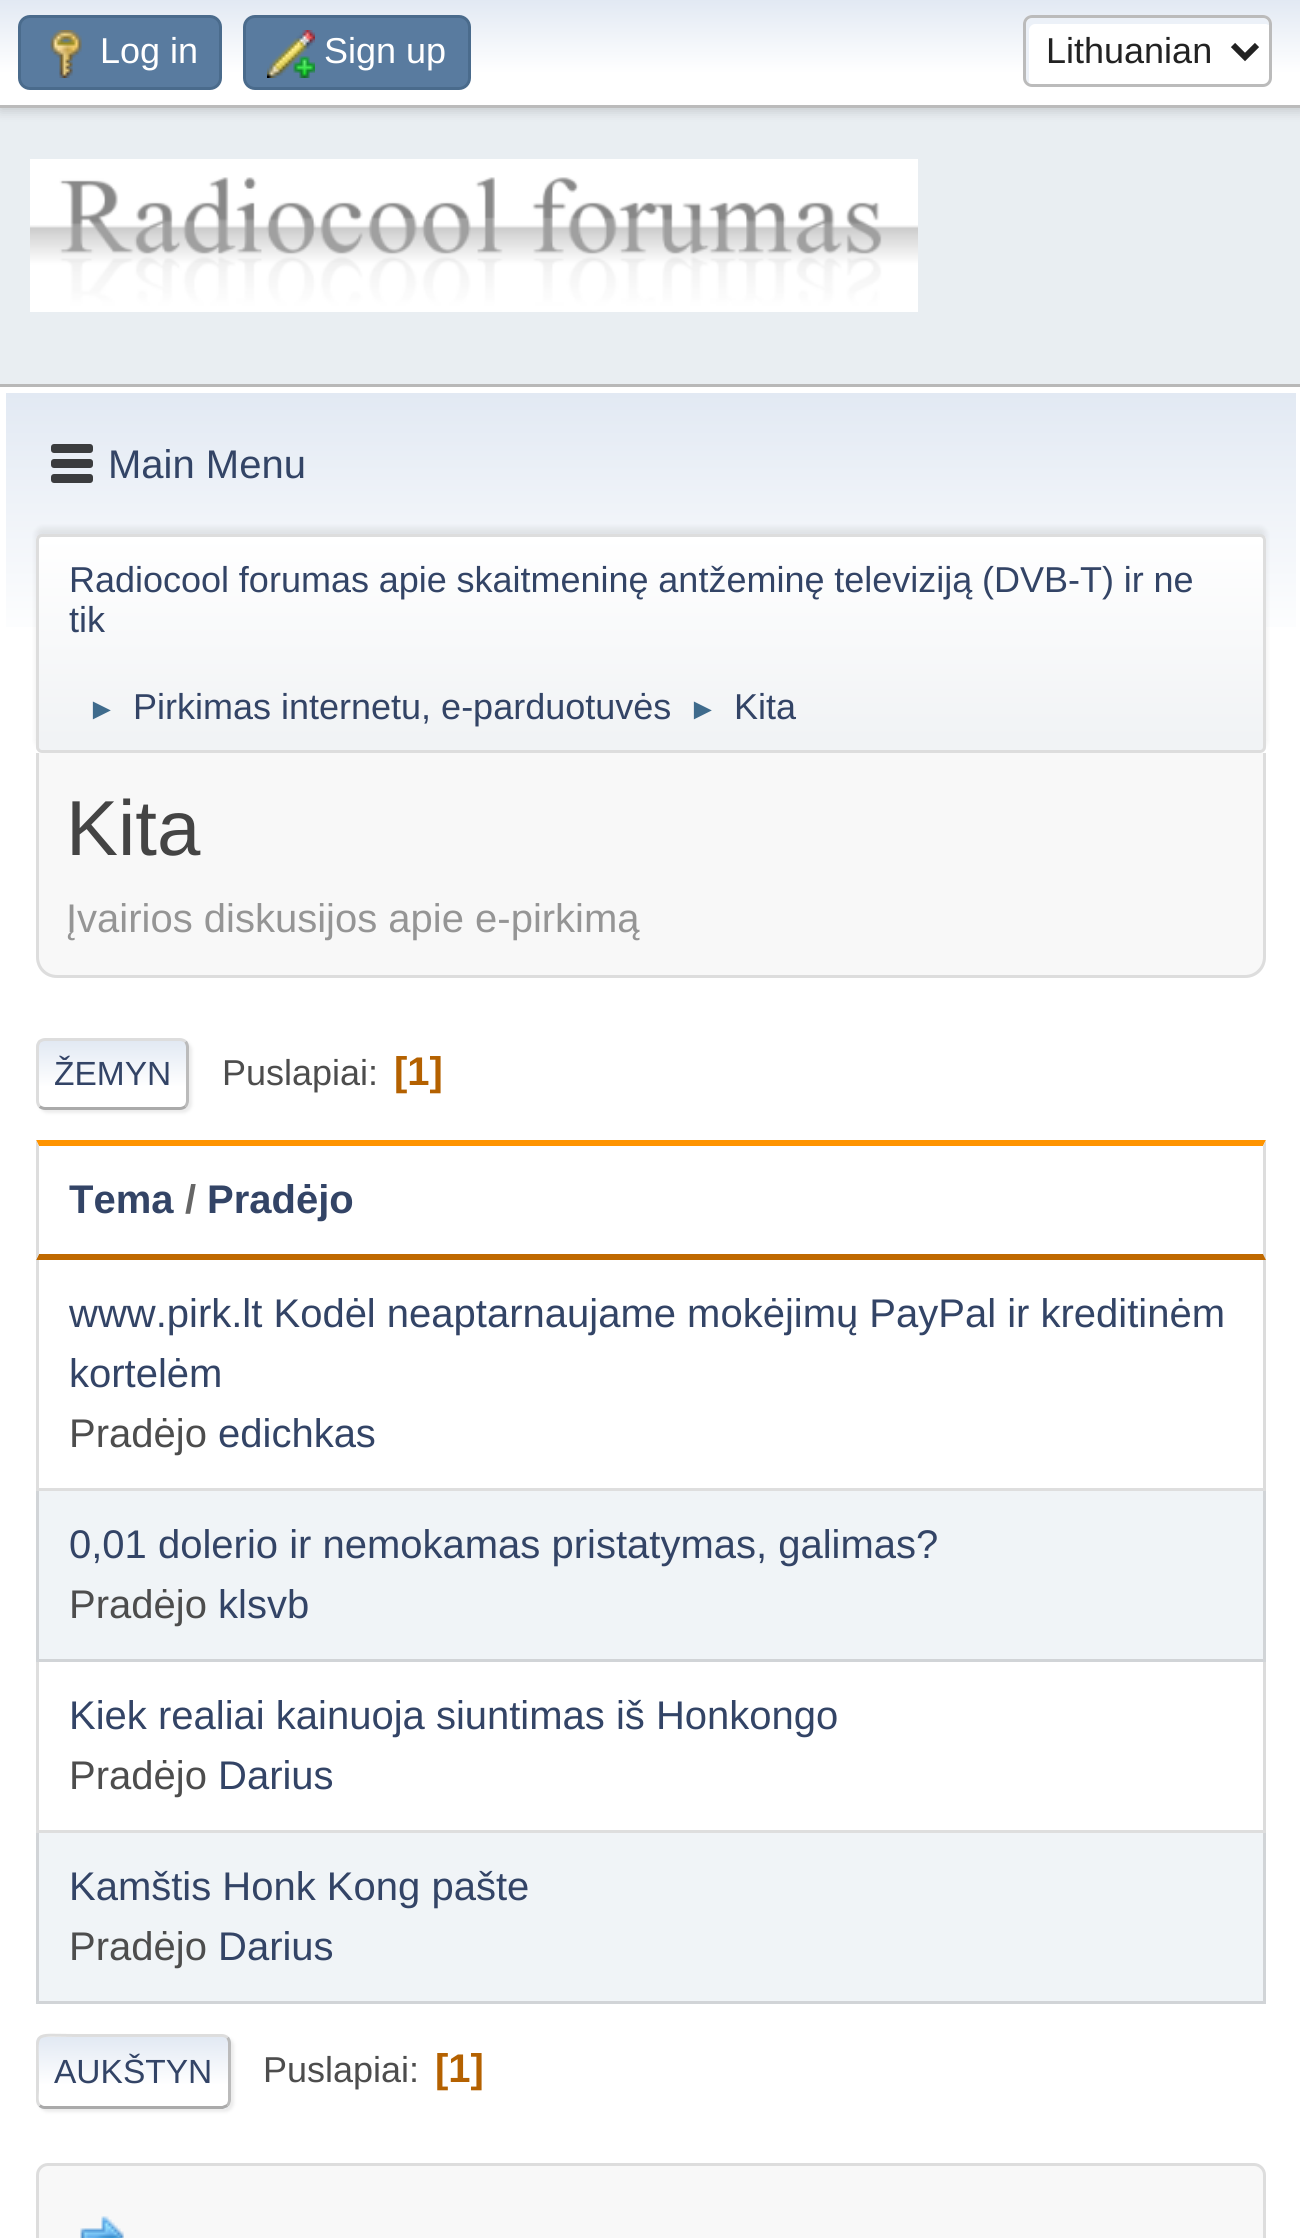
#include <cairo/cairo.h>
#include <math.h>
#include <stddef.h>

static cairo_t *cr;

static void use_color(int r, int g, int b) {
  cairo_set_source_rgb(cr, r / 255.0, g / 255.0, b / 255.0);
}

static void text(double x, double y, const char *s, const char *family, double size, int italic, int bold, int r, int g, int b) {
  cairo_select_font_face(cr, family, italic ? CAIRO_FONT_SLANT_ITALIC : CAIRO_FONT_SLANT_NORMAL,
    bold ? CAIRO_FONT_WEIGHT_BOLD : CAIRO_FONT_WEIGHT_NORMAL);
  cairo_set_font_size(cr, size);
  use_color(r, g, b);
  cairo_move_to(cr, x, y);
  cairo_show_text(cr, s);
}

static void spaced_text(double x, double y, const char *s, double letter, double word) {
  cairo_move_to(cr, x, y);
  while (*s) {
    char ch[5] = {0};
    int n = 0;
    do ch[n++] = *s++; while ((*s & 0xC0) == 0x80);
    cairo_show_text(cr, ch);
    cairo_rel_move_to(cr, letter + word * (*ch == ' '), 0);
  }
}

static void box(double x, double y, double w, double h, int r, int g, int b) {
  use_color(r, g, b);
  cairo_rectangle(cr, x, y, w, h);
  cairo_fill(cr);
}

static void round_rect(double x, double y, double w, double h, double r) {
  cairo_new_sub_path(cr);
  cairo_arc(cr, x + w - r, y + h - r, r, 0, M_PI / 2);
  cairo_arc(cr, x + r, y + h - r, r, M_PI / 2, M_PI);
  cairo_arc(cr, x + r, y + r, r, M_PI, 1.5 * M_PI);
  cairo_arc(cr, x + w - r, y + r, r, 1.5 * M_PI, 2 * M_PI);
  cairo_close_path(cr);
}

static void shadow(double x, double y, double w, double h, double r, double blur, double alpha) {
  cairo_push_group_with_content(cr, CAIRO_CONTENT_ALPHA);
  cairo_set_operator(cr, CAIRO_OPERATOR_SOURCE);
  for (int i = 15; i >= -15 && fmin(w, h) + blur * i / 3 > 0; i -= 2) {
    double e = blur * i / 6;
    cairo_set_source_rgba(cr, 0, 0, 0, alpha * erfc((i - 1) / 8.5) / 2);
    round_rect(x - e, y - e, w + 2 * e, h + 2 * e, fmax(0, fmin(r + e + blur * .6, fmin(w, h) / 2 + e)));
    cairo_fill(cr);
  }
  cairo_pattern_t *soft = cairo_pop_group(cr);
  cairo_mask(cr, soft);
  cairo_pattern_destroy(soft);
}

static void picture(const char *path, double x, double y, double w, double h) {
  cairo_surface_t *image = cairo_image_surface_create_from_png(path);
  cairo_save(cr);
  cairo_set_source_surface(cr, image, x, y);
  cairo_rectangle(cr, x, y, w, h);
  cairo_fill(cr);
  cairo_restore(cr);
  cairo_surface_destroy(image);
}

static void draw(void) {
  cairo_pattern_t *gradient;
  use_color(233, 238, 242);
  cairo_paint(cr);
  use_color(0, 0, 0);
  shadow(0, 3, 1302, 108, 0, 6, 0.16);
  gradient = cairo_pattern_create_linear(651, 0, 651, 105);
  cairo_pattern_add_color_stop_rgba(gradient, 0, 0.886, 0.914, 0.953, 1);
  cairo_pattern_add_color_stop_rgba(gradient, 0.7, 1, 1, 1, 1);
  cairo_set_source(cr, gradient);
  cairo_pattern_destroy(gradient);
  cairo_rectangle(cr, 0, 0, 1300, 105);
  cairo_fill(cr);
  box(0, 105, 1300, 3, 187, 187, 187);
  use_color(89, 123, 159);
  round_rect(19.5, 16.5, 201, 72, 10.5);
  cairo_fill_preserve(cr);
  use_color(74, 107, 140);
  cairo_set_line_width(cr, 3);
  cairo_stroke(cr);
  picture("img_01.png", 50, 30, 32, 48);
  use_color(89, 123, 159);
  round_rect(244.5, 16.5, 225, 72, 10.5);
  cairo_fill_preserve(cr);
  use_color(74, 107, 140);
  cairo_stroke(cr);
  picture("img_02.png", 267, 30, 48, 48);
  use_color(255, 255, 255);
  round_rect(1023, 15, 249, 72, 9);
  cairo_fill(cr);
  use_color(236, 241, 248);
  cairo_new_path(cr);
  cairo_move_to(cr, 1035, 24);
  cairo_line_to(cr, 1266, 24);
  cairo_line_to(cr, 1269, 25);
  cairo_line_to(cr, 1269, 24);
  cairo_curve_to(cr, 1269, 21, 1266, 18, 1263, 18);
  cairo_line_to(cr, 1032, 18);
  cairo_curve_to(cr, 1029, 18, 1026, 21, 1026, 24);
  cairo_line_to(cr, 1026, 78);
  cairo_curve_to(cr, 1026, 80, 1027, 82, 1029, 83);
  cairo_line_to(cr, 1029, 30);
  cairo_curve_to(cr, 1029, 27, 1032, 24, 1035, 24);
  cairo_close_path(cr);
  cairo_fill(cr);
  round_rect(1024.5, 16.5, 246, 69, 7.5);
  use_color(187, 187, 187);
  cairo_stroke(cr);
  cairo_new_path(cr);
  cairo_move_to(cr, 1233, 45);
  cairo_line_to(cr, 1245, 57);
  cairo_line_to(cr, 1257, 45);
  use_color(34, 34, 34);
  cairo_set_line_width(cr, 6);
  cairo_stroke(cr);
  picture("img_03.png", 30, 159, 888, 153);
  box(0, 387, 1300, 1851, 255, 255, 255);
  box(0, 384, 1300, 3, 184, 184, 184);
  gradient = cairo_pattern_create_linear(651, 393, 651, 759);
  cairo_pattern_add_color_stop_rgba(gradient, 0, 0.886, 0.914, 0.953, 1);
  cairo_pattern_add_color_stop_rgba(gradient, 0.7, 1, 1, 1, 1);
  cairo_set_source(cr, gradient);
  cairo_pattern_destroy(gradient);
  cairo_rectangle(cr, 6, 393, 1290, 234);
  cairo_fill(cr);
  picture("img_04.png", 51, 444, 42, 39);
  use_color(0, 0, 0);
  shadow(36, 528, 1230, 219, 6, 3, 0.08);
  cairo_save(cr);
  round_rect(36, 534, 1230, 219, 6);
  cairo_clip(cr);
  gradient = cairo_pattern_create_linear(651, 537, 651, 750);
  cairo_pattern_add_color_stop_rgba(gradient, 0, 1, 1, 1, 1);
  cairo_pattern_add_color_stop_rgba(gradient, 0.95, 0.945, 0.953, 0.961, 1);
  cairo_set_source(cr, gradient);
  cairo_pattern_destroy(gradient);
  cairo_rectangle(cr, 36, 537, 1230, 213);
  cairo_fill(cr);
  cairo_restore(cr);
  round_rect(37.5, 535.5, 1227, 216, 4.5);
  use_color(221, 221, 221);
  cairo_set_line_width(cr, 3);
  cairo_stroke(cr);
  use_color(248, 248, 248);
  cairo_new_path(cr);
  cairo_move_to(cr, 36, 753);
  cairo_line_to(cr, 1266, 753);
  cairo_line_to(cr, 1266, 957);
  cairo_curve_to(cr, 1266, 968.5, 1256.5, 978, 1245, 978);
  cairo_line_to(cr, 57, 978);
  cairo_curve_to(cr, 45.5, 978, 36, 968.5, 36, 957);
  cairo_close_path(cr);
  cairo_fill(cr);
  use_color(221, 221, 221);
  cairo_set_fill_rule(cr, CAIRO_FILL_RULE_EVEN_ODD);
  cairo_new_path(cr);
  cairo_move_to(cr, 36, 753);
  cairo_line_to(cr, 1266, 753);
  cairo_line_to(cr, 1266, 957);
  cairo_curve_to(cr, 1266, 969, 1257, 978, 1245, 978);
  cairo_line_to(cr, 57, 978);
  cairo_curve_to(cr, 45, 978, 36, 969, 36, 957);
  cairo_close_path(cr);
  cairo_move_to(cr, 39, 753);
  cairo_line_to(cr, 1263, 753);
  cairo_line_to(cr, 1263, 957);
  cairo_curve_to(cr, 1263, 967, 1255, 975, 1245, 975);
  cairo_line_to(cr, 57, 975);
  cairo_curve_to(cr, 47, 975, 39, 967, 39, 957);
  cairo_close_path(cr);
  cairo_fill(cr);
  use_color(221, 221, 221);
  shadow(39, 1041, 153, 72, 9, 1.5, 0.57);
  cairo_save(cr);
  cairo_set_fill_rule(cr, CAIRO_FILL_RULE_WINDING);
  round_rect(36, 1038, 153, 72, 9);
  cairo_clip(cr);
  gradient = cairo_pattern_create_linear(113, 1041, 113, 1107);
  cairo_pattern_add_color_stop_rgba(gradient, 0, 0.886, 0.914, 0.953, 1);
  cairo_pattern_add_color_stop_rgba(gradient, 0.7, 1, 1, 1, 1);
  cairo_set_source(cr, gradient);
  cairo_pattern_destroy(gradient);
  cairo_rectangle(cr, 36, 1041, 153, 66);
  cairo_fill(cr);
  cairo_restore(cr);
  cairo_new_path(cr);
  cairo_move_to(cr, 185.5, 1041.5);
  cairo_curve_to(cr, 186.5, 1043, 187.5, 1045, 187.5, 1047);
  cairo_line_to(cr, 187.5, 1101);
  cairo_curve_to(cr, 187.5, 1103, 186.5, 1105, 185.5, 1106.5);
  use_color(187, 187, 187);
  cairo_stroke(cr);
  cairo_new_path(cr);
  cairo_move_to(cr, 185.5, 1106.5);
  cairo_curve_to(cr, 184, 1107.5, 182, 1108.5, 180, 1108.5);
  cairo_line_to(cr, 45, 1108.5);
  cairo_curve_to(cr, 43, 1108.5, 41, 1107.5, 39.5, 1106.5);
  use_color(170, 170, 170);
  cairo_stroke(cr);
  cairo_new_path(cr);
  cairo_move_to(cr, 39.5, 1106.5);
  cairo_curve_to(cr, 38.5, 1105, 37.5, 1103, 37.5, 1101);
  cairo_line_to(cr, 37.5, 1047);
  cairo_curve_to(cr, 37.5, 1045, 38.5, 1043, 39.5, 1041.5);
  cairo_curve_to(cr, 41, 1040.5, 43, 1039.5, 45, 1039.5);
  cairo_line_to(cr, 180, 1039.5);
  cairo_curve_to(cr, 182, 1039.5, 184, 1040.5, 185.5, 1041.5);
  use_color(221, 221, 221);
  cairo_stroke(cr);
  use_color(255, 148, 0);
  cairo_set_fill_rule(cr, CAIRO_FILL_RULE_WINDING);
  cairo_new_path(cr);
  cairo_move_to(cr, 36, 1140);
  cairo_line_to(cr, 1266, 1140);
  cairo_line_to(cr, 1263, 1146);
  cairo_line_to(cr, 39, 1146);
  cairo_close_path(cr);
  cairo_fill(cr);
  use_color(221, 221, 221);
  cairo_new_path(cr);
  cairo_move_to(cr, 1266, 1140);
  cairo_line_to(cr, 1266, 1260);
  cairo_line_to(cr, 1263, 1254);
  cairo_line_to(cr, 1263, 1146);
  cairo_close_path(cr);
  cairo_fill(cr);
  use_color(191, 105, 0);
  cairo_new_path(cr);
  cairo_move_to(cr, 1266, 1260);
  cairo_line_to(cr, 36, 1260);
  cairo_line_to(cr, 39, 1254);
  cairo_line_to(cr, 1263, 1254);
  cairo_close_path(cr);
  cairo_fill(cr);
  use_color(221, 221, 221);
  cairo_new_path(cr);
  cairo_move_to(cr, 36, 1260);
  cairo_line_to(cr, 36, 1140);
  cairo_line_to(cr, 39, 1146);
  cairo_line_to(cr, 39, 1254);
  cairo_close_path(cr);
  cairo_fill(cr);
  use_color(220, 220, 220);
  cairo_new_path(cr);
  cairo_move_to(cr, 1266, 1260);
  cairo_line_to(cr, 1266, 1491);
  cairo_line_to(cr, 1263, 1488);
  cairo_line_to(cr, 1263, 1260);
  cairo_close_path(cr);
  cairo_fill(cr);
  cairo_set_source_rgba(cr, 0, 0, 0, 0.13);
  cairo_new_path(cr);
  cairo_move_to(cr, 1266, 1491);
  cairo_line_to(cr, 36, 1491);
  cairo_line_to(cr, 39, 1488);
  cairo_line_to(cr, 1263, 1488);
  cairo_close_path(cr);
  cairo_fill(cr);
  cairo_new_path(cr);
  cairo_move_to(cr, 36, 1491);
  cairo_line_to(cr, 36, 1260);
  cairo_line_to(cr, 39, 1260);
  cairo_line_to(cr, 39, 1488);
  cairo_close_path(cr);
  cairo_fill(cr);
  box(36, 1491, 1230, 171, 240, 244, 247);
  use_color(209, 212, 215);
  cairo_new_path(cr);
  cairo_move_to(cr, 1266, 1491);
  cairo_line_to(cr, 1266, 1662);
  cairo_line_to(cr, 1263, 1659);
  cairo_line_to(cr, 1263, 1491);
  cairo_close_path(cr);
  cairo_fill(cr);
  cairo_set_source_rgba(cr, 0, 0, 0, 0.13);
  cairo_new_path(cr);
  cairo_move_to(cr, 1266, 1662);
  cairo_line_to(cr, 36, 1662);
  cairo_line_to(cr, 39, 1659);
  cairo_line_to(cr, 1263, 1659);
  cairo_close_path(cr);
  cairo_fill(cr);
  cairo_new_path(cr);
  cairo_move_to(cr, 36, 1662);
  cairo_line_to(cr, 36, 1491);
  cairo_line_to(cr, 39, 1491);
  cairo_line_to(cr, 39, 1659);
  cairo_close_path(cr);
  cairo_fill(cr);
  use_color(220, 220, 220);
  cairo_new_path(cr);
  cairo_move_to(cr, 1266, 1662);
  cairo_line_to(cr, 1266, 1833);
  cairo_line_to(cr, 1263, 1830);
  cairo_line_to(cr, 1263, 1662);
  cairo_close_path(cr);
  cairo_fill(cr);
  cairo_set_source_rgba(cr, 0, 0, 0, 0.13);
  cairo_new_path(cr);
  cairo_move_to(cr, 1266, 1833);
  cairo_line_to(cr, 36, 1833);
  cairo_line_to(cr, 39, 1830);
  cairo_line_to(cr, 1263, 1830);
  cairo_close_path(cr);
  cairo_fill(cr);
  cairo_new_path(cr);
  cairo_move_to(cr, 36, 1833);
  cairo_line_to(cr, 36, 1662);
  cairo_line_to(cr, 39, 1662);
  cairo_line_to(cr, 39, 1830);
  cairo_close_path(cr);
  cairo_fill(cr);
  box(36, 1833, 1230, 171, 240, 244, 247);
  use_color(209, 212, 215);
  cairo_new_path(cr);
  cairo_move_to(cr, 1266, 1833);
  cairo_line_to(cr, 1266, 2004);
  cairo_line_to(cr, 1263, 2001);
  cairo_line_to(cr, 1263, 1833);
  cairo_close_path(cr);
  cairo_fill(cr);
  cairo_set_source_rgba(cr, 0, 0, 0, 0.13);
  cairo_new_path(cr);
  cairo_move_to(cr, 1266, 2004);
  cairo_line_to(cr, 36, 2004);
  cairo_line_to(cr, 39, 2001);
  cairo_line_to(cr, 1263, 2001);
  cairo_close_path(cr);
  cairo_fill(cr);
  cairo_new_path(cr);
  cairo_move_to(cr, 36, 2004);
  cairo_line_to(cr, 36, 1833);
  cairo_line_to(cr, 39, 1833);
  cairo_line_to(cr, 39, 2001);
  cairo_close_path(cr);
  cairo_fill(cr);
  use_color(221, 221, 221);
  shadow(39, 2037, 195, 75, 9, 1.5, 0.57);
  use_color(255, 255, 255);
  round_rect(36, 2034, 195, 75, 9);
  cairo_fill(cr);
  cairo_save(cr);
  round_rect(36, 2034, 195, 75, 9);
  cairo_clip(cr);
  gradient = cairo_pattern_create_linear(134, 2037, 134, 2106);
  cairo_pattern_add_color_stop_rgba(gradient, 0, 0.886, 0.914, 0.953, 1);
  cairo_pattern_add_color_stop_rgba(gradient, 0.7, 1, 1, 1, 1);
  cairo_set_source(cr, gradient);
  cairo_pattern_destroy(gradient);
  cairo_rectangle(cr, 36, 2037, 195, 69);
  cairo_fill(cr);
  gradient = cairo_pattern_create_linear(134, 2106, 134, 2175);
  cairo_pattern_add_color_stop_rgba(gradient, 0, 0.886, 0.914, 0.953, 1);
  cairo_pattern_add_color_stop_rgba(gradient, 0.7, 1, 1, 1, 1);
  cairo_set_source(cr, gradient);
  cairo_pattern_destroy(gradient);
  cairo_rectangle(cr, 36, 2106, 195, 3);
  cairo_fill(cr);
  cairo_restore(cr);
  cairo_new_path(cr);
  cairo_move_to(cr, 227.5, 2037.5);
  cairo_curve_to(cr, 228.5, 2039, 229.5, 2041, 229.5, 2043);
  cairo_line_to(cr, 229.5, 2100);
  cairo_curve_to(cr, 229.5, 2102, 228.5, 2104, 227.5, 2105.5);
  use_color(187, 187, 187);
  cairo_stroke(cr);
  cairo_new_path(cr);
  cairo_move_to(cr, 227.5, 2105.5);
  cairo_line_to(cr, 222.5, 2107.5);
  cairo_line_to(cr, 44.5, 2107.5);
  cairo_curve_to(cr, 42.5, 2107.5, 41, 2106.5, 39.5, 2105.5);
  use_color(170, 170, 170);
  cairo_stroke(cr);
  cairo_save(cr);
  cairo_rectangle(cr, 36, 2019, 1230, 105);
  cairo_clip(cr);
  cairo_new_path(cr);
  cairo_move_to(cr, 39.5, 2105.5);
  cairo_curve_to(cr, 36, 2101.5, 37.5, 2094.5, 37.5, 2090.5);
  cairo_line_to(cr, 37.5, 2071.5);
  cairo_curve_to(cr, 37.5, 2029.5, 31, 2035.5, 74.5, 2035.5);
  cairo_line_to(cr, 222, 2035.5);
  cairo_curve_to(cr, 224, 2035.5, 226, 2036.5, 227.5, 2037.5);
  use_color(221, 221, 221);
  cairo_stroke(cr);
  cairo_restore(cr);
  use_color(248, 248, 248);
  round_rect(37.5, 2164.5, 1227, 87, 10.5);
  cairo_fill_preserve(cr);
  use_color(221, 221, 221);
  cairo_stroke(cr);
  picture("img_05.png", 80, 2216, 44, 22);
  text(100, 63, "Log in", "Liberation Sans", 36, 0, 0, 255, 255, 255);
  text(324, 63, "Sign up", "Liberation Sans", 36, 0, 0, 255, 255, 255);
  text(1046, 63, "Lithuanian", "Liberation Sans", 36, 0, 0, 34, 34, 34);
  text(108, 478, "Main Menu", "Liberation Sans", 40, 0, 0, 51, 68, 102);
  cairo_set_font_size(cr, 36);
  spaced_text(69, 592, "Radiocool forumas apie skaitmeninę antžeminę televiziją (DVB-T) ir ne", 0, -0.25);
  text(69, 632, "tik", "Liberation Sans", 36, 0, 0, 51, 68, 102);
  text(87, 719, "►", "Liberation Sans", 30, 0, 0, 63, 107, 140);
  text(133, 719, "Pirkimas internetu, e-parduotuvės", "Liberation Sans", 36, 0, 0, 51, 68, 102);
  text(688, 719, "►", "Liberation Sans", 30, 0, 0, 63, 107, 140);
  text(734, 719, "Kita", "Liberation Sans", 36, 0, 0, 51, 68, 102);
  text(66, 855, "Kita", "Liberation Sans", 78, 0, 0, 68, 68, 68);
  text(66, 932, "Įvairios diskusijos apie e-pirkimą", "Liberation Sans", 40, 0, 0, 149, 149, 149);
  text(54, 1085, "ŽEMYN", "Liberation Sans", 33.5, 0, 0, 51, 68, 102);
  text(222, 1085, "Puslapiai:", "Liberation Sans", 36, 0, 0, 77, 77, 77);
  text(394, 1085, "[1]", "Liberation Sans", 40, 0, 1, 180, 97, 0);
  text(69, 1213, "Tema", "Liberation Sans", 40, 0, 1, 51, 68, 102);
  text(185, 1213, "/", "Liberation Sans", 40, 0, 1, 102, 102, 102);
  text(207, 1213, "Pradėjo", "Liberation Sans", 40, 0, 1, 51, 68, 102);
  text(69, 1327, "www.pirk.lt Kodėl neaptarnaujame mokėjimų PayPal ir kreditinėm", "Liberation Sans", 40, 0, 0, 51, 68, 102);
  text(69, 1387, "kortelėm", "Liberation Sans", 40, 0, 0, 51, 68, 102);
  text(69, 1447, "Pradėjo", "Liberation Sans", 40, 0, 0, 77, 77, 77);
  text(218, 1447, "edichkas", "Liberation Sans", 40, 0, 0, 51, 68, 102);
  text(69, 1558, "0,01 dolerio ir nemokamas pristatymas, galimas?", "Liberation Sans", 40, 0, 0, 51, 68, 102);
  text(69, 1618, "Pradėjo", "Liberation Sans", 40, 0, 0, 77, 77, 77);
  text(218, 1618, "klsvb", "Liberation Sans", 40, 0, 0, 51, 68, 102);
  text(69, 1729, "Kiek realiai kainuoja siuntimas iš Honkongo", "Liberation Sans", 40, 0, 0, 51, 68, 102);
  text(69, 1789, "Pradėjo", "Liberation Sans", 40, 0, 0, 77, 77, 77);
  text(218, 1789, "Darius", "Liberation Sans", 40, 0, 0, 51, 68, 102);
  text(69, 1900, "Kamštis Honk Kong pašte", "Liberation Sans", 40, 0, 0, 51, 68, 102);
  text(69, 1960, "Pradėjo", "Liberation Sans", 40, 0, 0, 77, 77, 77);
  text(218, 1960, "Darius", "Liberation Sans", 40, 0, 0, 51, 68, 102);
  text(54, 2083, "AUKŠTYN", "Liberation Sans", 33.5, 0, 0, 51, 68, 102);
  text(263, 2082, "Puslapiai:", "Liberation Sans", 36, 0, 0, 77, 77, 77);
  text(435, 2082, "[1]", "Liberation Sans", 40, 0, 1, 180, 97, 0);
}

int main(void) {
  cairo_surface_t *surface = cairo_image_surface_create(CAIRO_FORMAT_RGB24, 1300, 2238);
  cr = cairo_create(surface);
  cairo_font_options_t *options = cairo_font_options_create();
  cairo_font_options_set_hint_metrics(options, CAIRO_HINT_METRICS_OFF);
  cairo_font_options_set_hint_style(options, CAIRO_HINT_STYLE_NONE);
  cairo_set_font_options(cr, options);
  cairo_set_miter_limit(cr, 4);
  draw();
  cairo_surface_write_to_png(surface, "out.png");
  cairo_font_options_destroy(options);
  cairo_destroy(cr);
  cairo_surface_destroy(surface);
  return 0;
}
